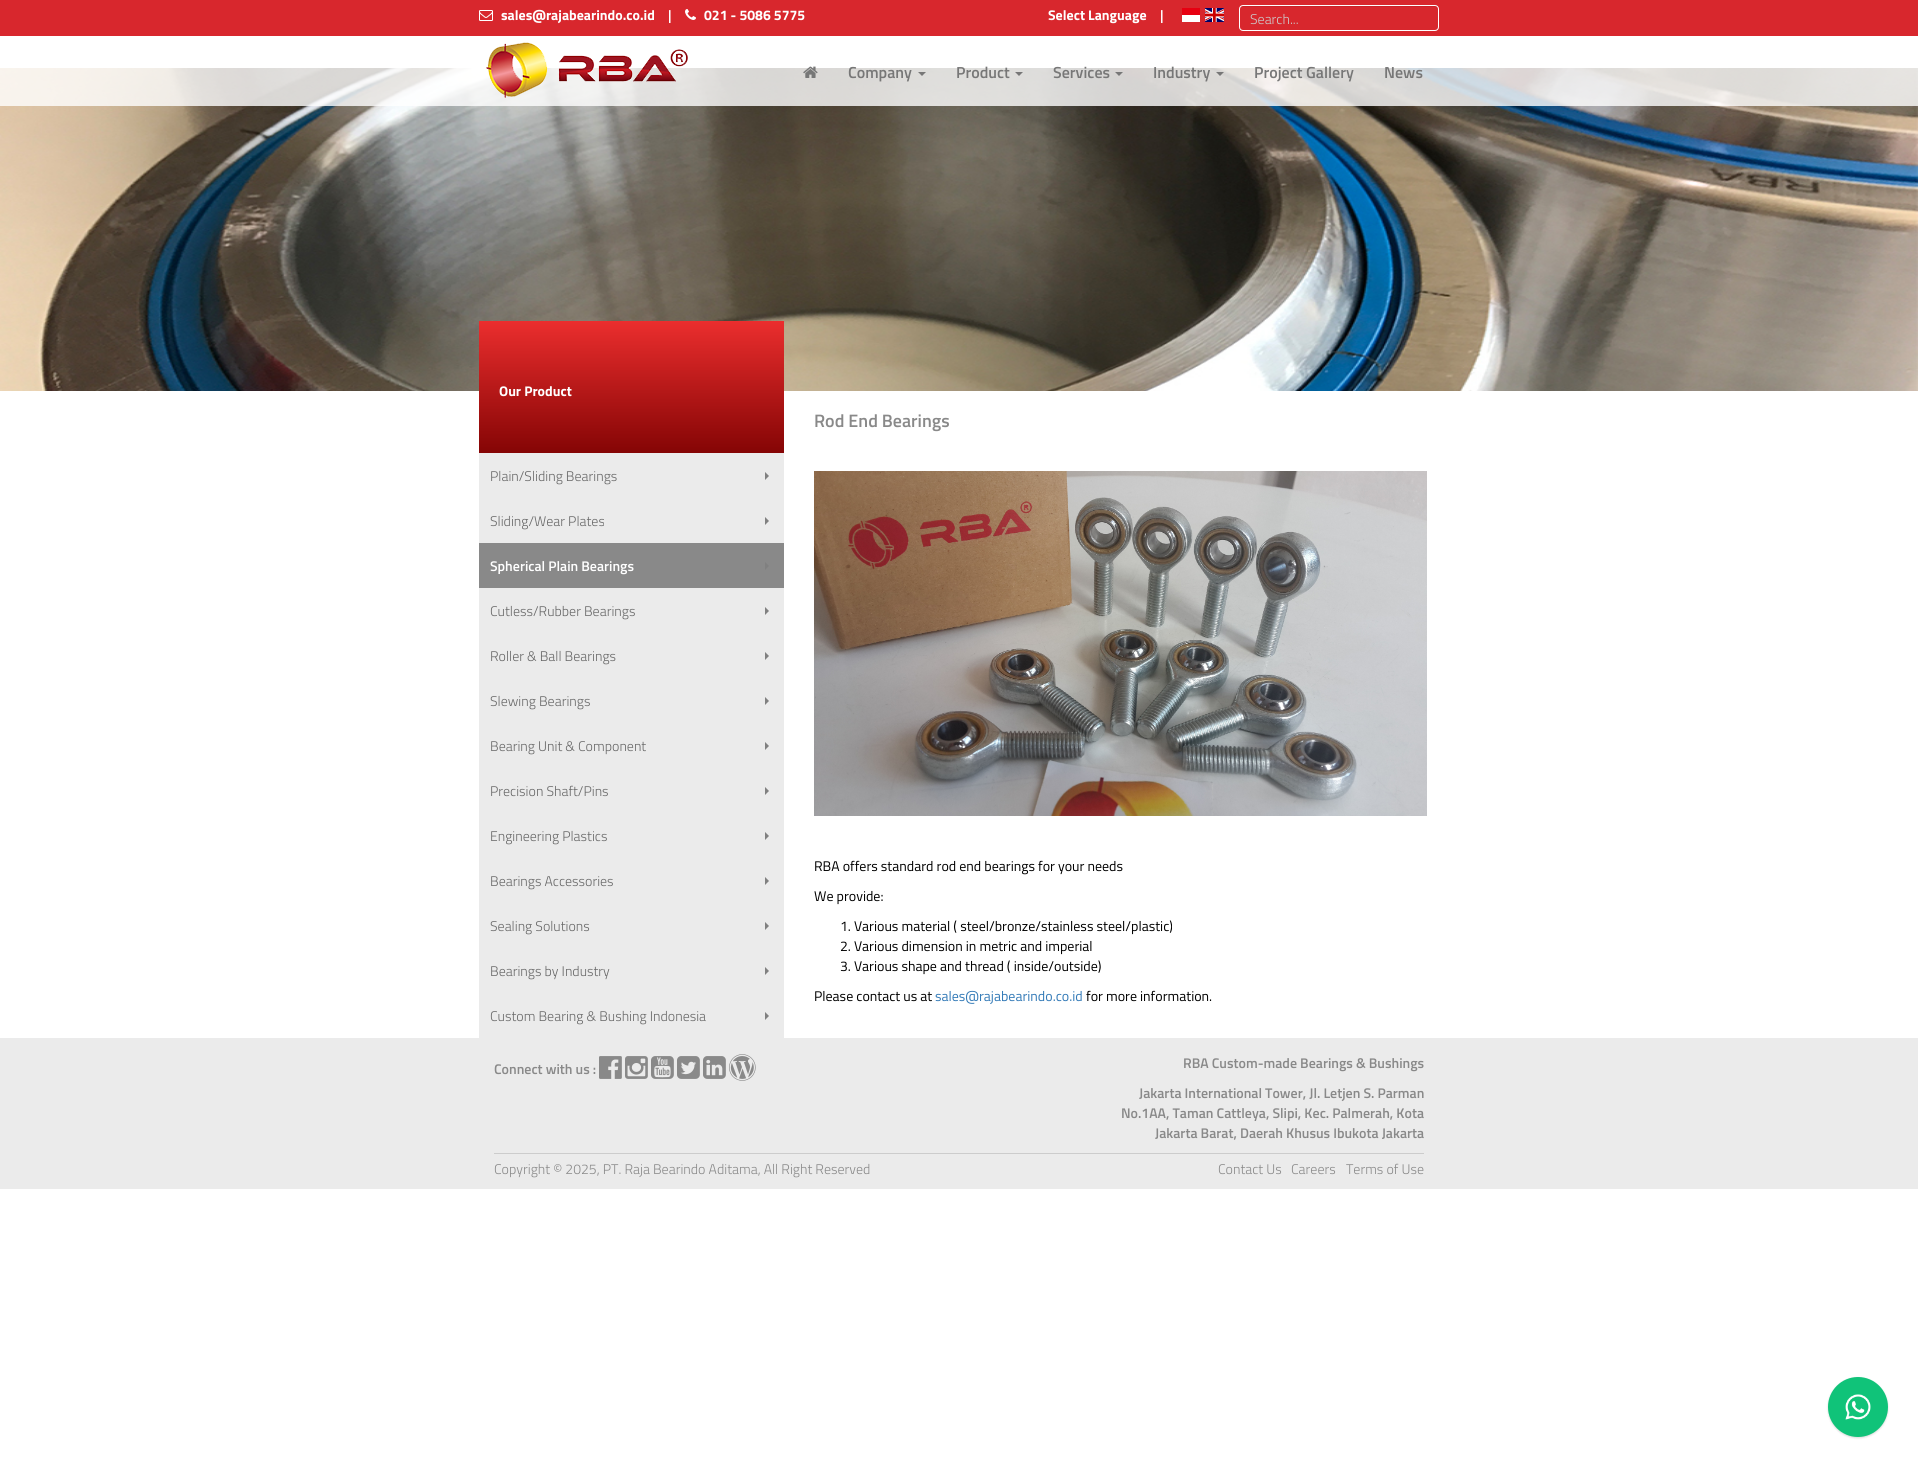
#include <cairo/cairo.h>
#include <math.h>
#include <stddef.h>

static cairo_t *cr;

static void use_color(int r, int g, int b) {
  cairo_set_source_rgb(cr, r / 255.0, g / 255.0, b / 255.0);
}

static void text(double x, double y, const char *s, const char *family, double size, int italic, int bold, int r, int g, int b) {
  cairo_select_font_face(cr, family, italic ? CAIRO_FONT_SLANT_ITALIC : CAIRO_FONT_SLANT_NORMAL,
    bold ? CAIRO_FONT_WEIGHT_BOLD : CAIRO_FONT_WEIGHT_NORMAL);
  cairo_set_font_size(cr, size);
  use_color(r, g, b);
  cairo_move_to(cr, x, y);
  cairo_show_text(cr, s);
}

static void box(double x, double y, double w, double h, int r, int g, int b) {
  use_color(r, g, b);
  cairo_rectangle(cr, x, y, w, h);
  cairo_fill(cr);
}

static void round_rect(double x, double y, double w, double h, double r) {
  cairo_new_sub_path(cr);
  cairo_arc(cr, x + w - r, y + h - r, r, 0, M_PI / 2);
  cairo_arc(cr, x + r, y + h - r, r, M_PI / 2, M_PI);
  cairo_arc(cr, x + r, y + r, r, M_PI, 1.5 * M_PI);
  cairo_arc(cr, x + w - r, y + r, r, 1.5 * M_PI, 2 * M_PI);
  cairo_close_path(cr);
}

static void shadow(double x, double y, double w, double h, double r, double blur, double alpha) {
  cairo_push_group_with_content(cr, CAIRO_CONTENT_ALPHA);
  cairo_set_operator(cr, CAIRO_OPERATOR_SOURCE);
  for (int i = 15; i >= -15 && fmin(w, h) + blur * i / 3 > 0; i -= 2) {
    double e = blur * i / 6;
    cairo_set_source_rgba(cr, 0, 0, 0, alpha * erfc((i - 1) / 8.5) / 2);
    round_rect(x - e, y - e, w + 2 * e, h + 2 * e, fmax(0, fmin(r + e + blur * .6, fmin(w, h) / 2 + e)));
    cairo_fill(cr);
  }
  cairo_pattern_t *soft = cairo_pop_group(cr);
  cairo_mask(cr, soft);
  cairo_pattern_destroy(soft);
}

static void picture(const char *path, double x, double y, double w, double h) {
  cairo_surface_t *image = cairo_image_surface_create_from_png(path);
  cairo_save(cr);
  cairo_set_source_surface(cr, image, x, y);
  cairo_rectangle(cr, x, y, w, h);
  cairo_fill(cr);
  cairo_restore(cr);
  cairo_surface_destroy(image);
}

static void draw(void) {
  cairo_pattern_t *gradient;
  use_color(255, 255, 255);
  cairo_paint(cr);
  box(0, 0, 1918, 36, 216, 39, 45);
  picture("img_01.png", 479, 10, 14, 11);
  picture("img_02.png", 685, 9, 11, 11);
  box(1182, 8, 18, 7, 231, 0, 17);
  box(1182, 15, 18, 7, 255, 255, 255);
  picture("img_03.png", 1205, 8, 19, 14);
  use_color(200, 36, 42);
  cairo_new_path(cr);
  cairo_move_to(cr, 1243, 7);
  cairo_line_to(cr, 1435, 7);
  cairo_curve_to(cr, 1437, 7, 1438, 8, 1438, 10);
  cairo_curve_to(cr, 1438, 8, 1437, 6, 1435, 6);
  cairo_line_to(cr, 1243, 6);
  cairo_curve_to(cr, 1241, 6, 1240, 8, 1240, 10);
  cairo_curve_to(cr, 1240, 8, 1241, 7, 1243, 7);
  cairo_close_path(cr);
  cairo_fill(cr);
  round_rect(1239.5, 5.5, 199, 25, 3.5);
  use_color(255, 255, 255);
  cairo_set_line_width(cr, 1);
  cairo_stroke(cr);
  picture("img_06.png", 0, 68, 1918, 323);
  cairo_set_source_rgba(cr, 1, 1, 1, 0.8);
  cairo_rectangle(cr, 0, 68, 1918, 38);
  cairo_fill(cr);
  picture("img_04.png", 486, 42, 202, 56);
  picture("img_05.png", 803, 66, 15, 12);
  use_color(119, 119, 119);
  cairo_new_path(cr);
  cairo_move_to(cr, 918, 72);
  cairo_line_to(cr, 926, 72);
  cairo_line_to(cr, 922, 76);
  cairo_close_path(cr);
  cairo_fill(cr);
  cairo_new_path(cr);
  cairo_move_to(cr, 1015, 72);
  cairo_line_to(cr, 1023, 72);
  cairo_line_to(cr, 1019, 76);
  cairo_close_path(cr);
  cairo_fill(cr);
  cairo_new_path(cr);
  cairo_move_to(cr, 1115, 72);
  cairo_line_to(cr, 1123, 72);
  cairo_line_to(cr, 1119, 76);
  cairo_close_path(cr);
  cairo_fill(cr);
  cairo_new_path(cr);
  cairo_move_to(cr, 1216, 72);
  cairo_line_to(cr, 1224, 72);
  cairo_line_to(cr, 1220, 76);
  cairo_close_path(cr);
  cairo_fill(cr);
  gradient = cairo_pattern_create_linear(632, 321, 632, 468);
  cairo_pattern_add_color_stop_rgba(gradient, 0, 0.922, 0.18, 0.18, 1);
  cairo_pattern_add_color_stop_rgba(gradient, 1, 0.475, 0, 0, 1);
  cairo_set_source(cr, gradient);
  cairo_pattern_destroy(gradient);
  cairo_rectangle(cr, 479, 321, 305, 132);
  cairo_fill(cr);
  box(479, 453, 305, 90, 235, 235, 235);
  use_color(128, 128, 128);
  cairo_new_path(cr);
  cairo_move_to(cr, 765, 480);
  cairo_line_to(cr, 765, 472);
  cairo_line_to(cr, 769, 476);
  cairo_close_path(cr);
  cairo_fill(cr);
  cairo_new_path(cr);
  cairo_move_to(cr, 765, 525);
  cairo_line_to(cr, 765, 517);
  cairo_line_to(cr, 769, 521);
  cairo_close_path(cr);
  cairo_fill(cr);
  box(479, 543, 305, 45, 137, 137, 137);
  use_color(128, 128, 128);
  cairo_new_path(cr);
  cairo_move_to(cr, 765, 570);
  cairo_line_to(cr, 765, 562);
  cairo_line_to(cr, 769, 566);
  cairo_close_path(cr);
  cairo_fill(cr);
  box(479, 588, 305, 450, 235, 235, 235);
  use_color(128, 128, 128);
  cairo_new_path(cr);
  cairo_move_to(cr, 765, 615);
  cairo_line_to(cr, 765, 607);
  cairo_line_to(cr, 769, 611);
  cairo_close_path(cr);
  cairo_fill(cr);
  cairo_new_path(cr);
  cairo_move_to(cr, 765, 660);
  cairo_line_to(cr, 765, 652);
  cairo_line_to(cr, 769, 656);
  cairo_close_path(cr);
  cairo_fill(cr);
  cairo_new_path(cr);
  cairo_move_to(cr, 765, 705);
  cairo_line_to(cr, 765, 697);
  cairo_line_to(cr, 769, 701);
  cairo_close_path(cr);
  cairo_fill(cr);
  cairo_new_path(cr);
  cairo_move_to(cr, 765, 750);
  cairo_line_to(cr, 765, 742);
  cairo_line_to(cr, 769, 746);
  cairo_close_path(cr);
  cairo_fill(cr);
  cairo_new_path(cr);
  cairo_move_to(cr, 765, 795);
  cairo_line_to(cr, 765, 787);
  cairo_line_to(cr, 769, 791);
  cairo_close_path(cr);
  cairo_fill(cr);
  cairo_new_path(cr);
  cairo_move_to(cr, 765, 840);
  cairo_line_to(cr, 765, 832);
  cairo_line_to(cr, 769, 836);
  cairo_close_path(cr);
  cairo_fill(cr);
  cairo_new_path(cr);
  cairo_move_to(cr, 765, 885);
  cairo_line_to(cr, 765, 877);
  cairo_line_to(cr, 769, 881);
  cairo_close_path(cr);
  cairo_fill(cr);
  cairo_new_path(cr);
  cairo_move_to(cr, 765, 930);
  cairo_line_to(cr, 765, 922);
  cairo_line_to(cr, 769, 926);
  cairo_close_path(cr);
  cairo_fill(cr);
  cairo_new_path(cr);
  cairo_move_to(cr, 765, 975);
  cairo_line_to(cr, 765, 967);
  cairo_line_to(cr, 769, 971);
  cairo_close_path(cr);
  cairo_fill(cr);
  cairo_new_path(cr);
  cairo_move_to(cr, 765, 1020);
  cairo_line_to(cr, 765, 1012);
  cairo_line_to(cr, 769, 1016);
  cairo_close_path(cr);
  cairo_fill(cr);
  picture("img_07.png", 814, 471, 613, 345);
  box(0, 1038, 1918, 151, 235, 235, 235);
  box(494, 1153, 930, 1, 204, 204, 204);
  picture("img_08.png", 599, 1056, 23, 23);
  picture("img_09.png", 625, 1056, 23, 23);
  picture("img_10.png", 651, 1056, 23, 23);
  picture("img_11.png", 677, 1056, 23, 23);
  picture("img_12.png", 703, 1056, 23, 23);
  picture("img_13.png", 729, 1054, 27, 27);
  use_color(0, 0, 0);
  shadow(1828, 1378, 60, 60, 30, 1, 0.15);
  use_color(16, 195, 121);
  cairo_arc(cr, 1858, 1407, 30, 0, 2 * M_PI);
  cairo_fill(cr);
  picture("img_14.png", 1845, 1394, 26, 26);
  text(501, 20, "sales@rajabearindo.co.id", "Titillium Web", 14, 0, 1, 255, 255, 255);
  text(668, 20, "|", "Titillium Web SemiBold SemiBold", 14, 0, 0, 255, 255, 255);
  text(704, 20, "021 - 5086 5775", "Titillium Web", 14, 0, 1, 255, 255, 255);
  text(1048, 20, "Select Language", "Titillium Web", 14, 0, 1, 255, 255, 255);
  text(1160, 20, "|", "Titillium Web SemiBold SemiBold", 14, 0, 0, 255, 255, 255);
  text(1250, 24, "Search...", "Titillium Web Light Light", 14, 0, 0, 204, 204, 204);
  text(848, 78, "Company", "Titillium Web SemiBold SemiBold", 16, 0, 0, 119, 119, 119);
  text(956, 78, "Product", "Titillium Web SemiBold SemiBold", 16, 0, 0, 119, 119, 119);
  text(1053, 78, "Services", "Titillium Web SemiBold SemiBold", 16, 0, 0, 119, 119, 119);
  text(1153, 78, "Industry", "Titillium Web SemiBold SemiBold", 16, 0, 0, 119, 119, 119);
  text(1254, 78, "Project Gallery", "Titillium Web SemiBold SemiBold", 16, 0, 0, 119, 119, 119);
  text(1384, 78, "News", "Titillium Web SemiBold SemiBold", 16, 0, 0, 119, 119, 119);
  text(499, 396, "Our Product", "Titillium Web", 14, 0, 1, 255, 255, 255);
  text(490, 481, "Plain/Sliding Bearings", "Titillium Web Light Light", 14, 0, 0, 104, 104, 104);
  text(490, 526, "Sliding/Wear Plates", "Titillium Web Light Light", 14, 0, 0, 104, 104, 104);
  text(490, 571, "Spherical Plain Bearings", "Titillium Web SemiBold SemiBold", 14, 0, 0, 255, 255, 255);
  text(490, 616, "Cutless/Rubber Bearings", "Titillium Web Light Light", 14, 0, 0, 104, 104, 104);
  text(490, 661, "Roller & Ball Bearings", "Titillium Web Light Light", 14, 0, 0, 104, 104, 104);
  text(490, 706, "Slewing Bearings", "Titillium Web Light Light", 14, 0, 0, 104, 104, 104);
  text(490, 751, "Bearing Unit & Component", "Titillium Web Light Light", 14, 0, 0, 104, 104, 104);
  text(490, 796, "Precision Shaft/Pins", "Titillium Web Light Light", 14, 0, 0, 104, 104, 104);
  text(490, 841, "Engineering Plastics", "Titillium Web Light Light", 14, 0, 0, 104, 104, 104);
  text(490, 886, "Bearings Accessories", "Titillium Web Light Light", 14, 0, 0, 104, 104, 104);
  text(490, 931, "Sealing Solutions", "Titillium Web Light Light", 14, 0, 0, 104, 104, 104);
  text(490, 976, "Bearings by Industry", "Titillium Web Light Light", 14, 0, 0, 104, 104, 104);
  text(490, 1021, "Custom Bearing & Bushing Indonesia", "Titillium Web Light Light", 14, 0, 0, 104, 104, 104);
  text(814, 427, "Rod End Bearings", "Titillium Web SemiBold SemiBold", 18, 0, 0, 137, 137, 137);
  text(814, 871, "RBA offers standard rod end bearings for your needs", "Titillium Web", 14, 0, 0, 0, 0, 0);
  text(814, 901, "We provide:", "Titillium Web", 14, 0, 0, 0, 0, 0);
  text(840, 931, "1. Various material ( steel/bronze/stainless steel/plastic)", "Titillium Web", 14, 0, 0, 0, 0, 0);
  text(840, 951, "2. Various dimension in metric and imperial", "Titillium Web", 14, 0, 0, 0, 0, 0);
  text(840, 971, "3. Various shape and thread ( inside/outside)", "Titillium Web", 14, 0, 0, 0, 0, 0);
  text(814, 1001, "Please contact us at", "Titillium Web", 14, 0, 0, 0, 0, 0);
  text(935, 1001, "sales@rajabearindo.co.id", "Titillium Web", 14, 0, 0, 51, 122, 183);
  text(1086, 1001, "for more information.", "Titillium Web", 14, 0, 0, 0, 0, 0);
  text(494, 1074, "Connect with us :", "Titillium Web SemiBold SemiBold", 14, 0, 0, 137, 137, 137);
  text(1183, 1068, "RBA Custom-made Bearings & Bushings", "Titillium Web SemiBold SemiBold", 14, 0, 0, 137, 137, 137);
  text(1139, 1098, "Jakarta International Tower, Jl. Letjen S. Parman", "Titillium Web SemiBold SemiBold", 14, 0, 0, 137, 137, 137);
  text(1121, 1118, "No.1AA, Taman Cattleya, Slipi, Kec. Palmerah, Kota", "Titillium Web SemiBold SemiBold", 14, 0, 0, 137, 137, 137);
  text(1155, 1138, "Jakarta Barat, Daerah Khusus Ibukota Jakarta", "Titillium Web SemiBold SemiBold", 14, 0, 0, 137, 137, 137);
  text(494, 1174, "Copyright © 2025, PT. Raja Bearindo Aditama, All Right Reserved", "Titillium Web Light Light", 14, 0, 0, 137, 137, 137);
  text(1218, 1174, "Contact Us", "Titillium Web Light Light", 14, 0, 0, 137, 137, 137);
  text(1291, 1174, "Careers", "Titillium Web Light Light", 14, 0, 0, 137, 137, 137);
  text(1346, 1174, "Terms of Use", "Titillium Web Light Light", 14, 0, 0, 137, 137, 137);
}

int main(void) {
  cairo_surface_t *surface = cairo_image_surface_create(CAIRO_FORMAT_RGB24, 1918, 1467);
  cr = cairo_create(surface);
  cairo_font_options_t *options = cairo_font_options_create();
  cairo_font_options_set_hint_metrics(options, CAIRO_HINT_METRICS_OFF);
  cairo_font_options_set_hint_style(options, CAIRO_HINT_STYLE_NONE);
  cairo_set_font_options(cr, options);
  cairo_set_miter_limit(cr, 4);
  draw();
  cairo_surface_write_to_png(surface, "out.png");
  cairo_font_options_destroy(options);
  cairo_destroy(cr);
  cairo_surface_destroy(surface);
  return 0;
}
